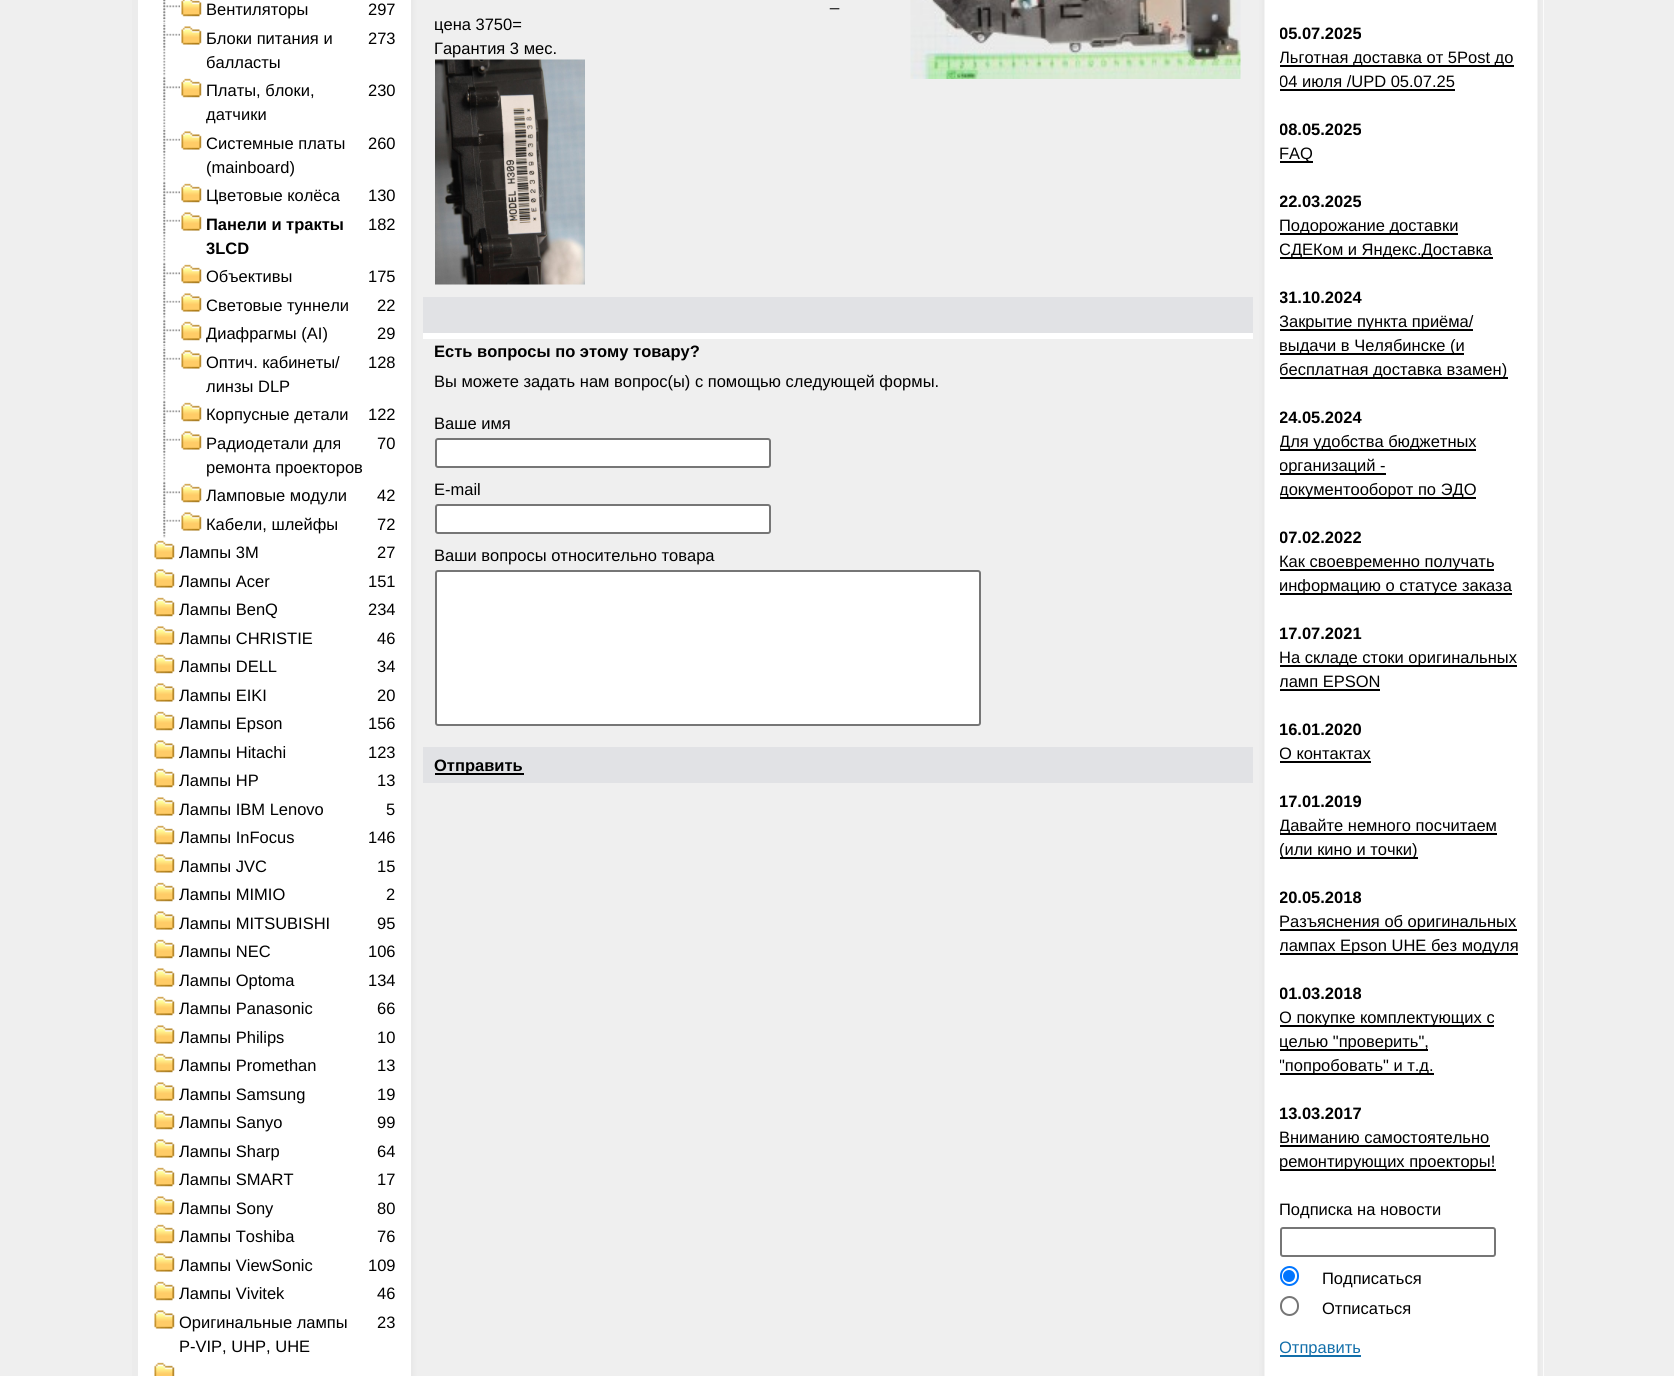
#include <cairo/cairo.h>
#include <math.h>
#include <stddef.h>

static cairo_t *cr;

static void use_color(int r, int g, int b) {
  cairo_set_source_rgb(cr, r / 255.0, g / 255.0, b / 255.0);
}

static void text(double x, double y, const char *s, const char *family, double size, int italic, int bold, int r, int g, int b) {
  cairo_select_font_face(cr, family, italic ? CAIRO_FONT_SLANT_ITALIC : CAIRO_FONT_SLANT_NORMAL,
    bold ? CAIRO_FONT_WEIGHT_BOLD : CAIRO_FONT_WEIGHT_NORMAL);
  cairo_set_font_size(cr, size);
  use_color(r, g, b);
  cairo_move_to(cr, x, y);
  cairo_show_text(cr, s);
}

static void box(double x, double y, double w, double h, int r, int g, int b) {
  use_color(r, g, b);
  cairo_rectangle(cr, x, y, w, h);
  cairo_fill(cr);
}

static void round_rect(double x, double y, double w, double h, double r) {
  cairo_new_sub_path(cr);
  cairo_arc(cr, x + w - r, y + h - r, r, 0, M_PI / 2);
  cairo_arc(cr, x + r, y + h - r, r, M_PI / 2, M_PI);
  cairo_arc(cr, x + r, y + r, r, M_PI, 1.5 * M_PI);
  cairo_arc(cr, x + w - r, y + r, r, 1.5 * M_PI, 2 * M_PI);
  cairo_close_path(cr);
}

static void picture(const char *path, double x, double y, double w, double h) {
  cairo_surface_t *image = cairo_image_surface_create_from_png(path);
  cairo_save(cr);
  cairo_set_source_surface(cr, image, x, y);
  cairo_rectangle(cr, x, y, w, h);
  cairo_fill(cr);
  cairo_restore(cr);
  cairo_surface_destroy(image);
}

static void draw(void) {
  use_color(239, 239, 239);
  cairo_paint(cr);
  box(138, 0, 273, 1376, 255, 255, 255);
  picture("img_01.png", 411, 0, 6, 1376);
  box(132, 0, 6, 1376, 236, 236, 236);
  picture("img_02.png", 163, 0, 3, 24);
  picture("img_03.png", 163, 0, 17, 19);
  picture("img_04.png", 181, 0, 21, 17);
  picture("img_05.png", 163, 23, 3, 53);
  picture("img_06.png", 163, 24, 17, 24);
  picture("img_07.png", 181, 26, 21, 19);
  picture("img_08.png", 163, 76, 3, 53);
  picture("img_09.png", 163, 77, 17, 23);
  picture("img_10.png", 181, 78, 21, 20);
  picture("img_05.png", 163, 128, 3, 53);
  picture("img_06.png", 163, 129, 17, 24);
  picture("img_07.png", 181, 131, 21, 19);
  picture("img_11.png", 163, 181, 3, 29);
  picture("img_09.png", 163, 182, 17, 23);
  picture("img_10.png", 181, 183, 21, 20);
  picture("img_05.png", 163, 209, 3, 53);
  picture("img_06.png", 163, 210, 17, 24);
  picture("img_07.png", 181, 212, 21, 19);
  picture("img_11.png", 163, 262, 3, 29);
  picture("img_09.png", 163, 263, 17, 23);
  picture("img_10.png", 181, 264, 21, 20);
  picture("img_12.png", 163, 290, 3, 29);
  picture("img_06.png", 163, 291, 17, 24);
  picture("img_07.png", 181, 293, 21, 19);
  picture("img_11.png", 163, 319, 3, 29);
  picture("img_09.png", 163, 320, 17, 23);
  picture("img_10.png", 181, 321, 21, 20);
  picture("img_05.png", 163, 347, 3, 53);
  picture("img_06.png", 163, 348, 17, 24);
  picture("img_07.png", 181, 350, 21, 19);
  picture("img_11.png", 163, 400, 3, 29);
  picture("img_09.png", 163, 401, 17, 23);
  picture("img_10.png", 181, 402, 21, 20);
  picture("img_05.png", 163, 428, 3, 53);
  picture("img_06.png", 163, 429, 17, 24);
  picture("img_07.png", 181, 431, 21, 19);
  picture("img_11.png", 163, 481, 3, 29);
  picture("img_09.png", 163, 482, 17, 23);
  picture("img_10.png", 181, 483, 21, 20);
  picture("img_12.png", 163, 509, 3, 29);
  picture("img_06.png", 163, 510, 17, 24);
  picture("img_07.png", 181, 512, 21, 19);
  picture("img_10.png", 154, 540, 21, 20);
  picture("img_07.png", 154, 569, 21, 19);
  picture("img_10.png", 154, 597, 21, 20);
  picture("img_07.png", 154, 626, 21, 19);
  picture("img_10.png", 154, 654, 21, 20);
  picture("img_07.png", 154, 683, 21, 19);
  picture("img_10.png", 154, 711, 21, 20);
  picture("img_07.png", 154, 740, 21, 19);
  picture("img_10.png", 154, 768, 21, 20);
  picture("img_07.png", 154, 797, 21, 19);
  picture("img_10.png", 154, 825, 21, 20);
  picture("img_07.png", 154, 854, 21, 19);
  picture("img_10.png", 154, 882, 21, 20);
  picture("img_07.png", 154, 911, 21, 19);
  picture("img_10.png", 154, 939, 21, 20);
  picture("img_07.png", 154, 968, 21, 19);
  picture("img_10.png", 154, 996, 21, 20);
  picture("img_07.png", 154, 1025, 21, 19);
  picture("img_10.png", 154, 1053, 21, 20);
  picture("img_07.png", 154, 1082, 21, 19);
  picture("img_10.png", 154, 1110, 21, 20);
  picture("img_07.png", 154, 1139, 21, 19);
  picture("img_10.png", 154, 1167, 21, 20);
  picture("img_07.png", 154, 1196, 21, 19);
  picture("img_10.png", 154, 1224, 21, 20);
  picture("img_07.png", 154, 1253, 21, 19);
  picture("img_10.png", 154, 1281, 21, 20);
  picture("img_07.png", 154, 1310, 21, 19);
  picture("img_13.png", 154, 1362, 21, 14);
  picture("img_14.png", 435, 59, 150, 226);
  picture("img_15.png", 910, 0, 331, 79);
  box(423, 297, 830, 36, 225, 226, 229);
  box(423, 333, 830, 6, 255, 255, 255);
  round_rect(436, 439, 334, 28, 2);
  cairo_fill_preserve(cr);
  use_color(118, 118, 118);
  cairo_stroke(cr);
  use_color(255, 255, 255);
  round_rect(436, 505, 334, 28, 2);
  cairo_fill_preserve(cr);
  use_color(118, 118, 118);
  cairo_stroke(cr);
  use_color(255, 255, 255);
  round_rect(436, 571, 544, 154, 2);
  cairo_fill_preserve(cr);
  use_color(118, 118, 118);
  cairo_stroke(cr);
  box(423, 747, 830, 36, 225, 226, 229);
  box(435, 773, 89, 2, 0, 0, 0);
  box(1264, 0, 280, 1376, 255, 255, 255);
  picture("img_16.png", 1537, 0, 7, 1376);
  picture("img_17.png", 1259, 0, 6, 1376);
  box(1280, 65, 234, 2, 0, 0, 0);
  box(1280, 89, 175, 2, 0, 0, 0);
  box(1280, 161, 33, 2, 0, 0, 0);
  box(1280, 233, 178, 2, 0, 0, 0);
  box(1280, 257, 213, 2, 0, 0, 0);
  box(1280, 329, 193, 2, 0, 0, 0);
  box(1280, 353, 184, 2, 0, 0, 0);
  box(1280, 377, 228, 2, 0, 0, 0);
  box(1280, 449, 196, 2, 0, 0, 0);
  box(1280, 473, 106, 2, 0, 0, 0);
  box(1280, 497, 196, 2, 0, 0, 0);
  box(1280, 569, 214, 2, 0, 0, 0);
  box(1280, 593, 232, 2, 0, 0, 0);
  box(1280, 665, 237, 2, 0, 0, 0);
  box(1280, 689, 100, 2, 0, 0, 0);
  box(1280, 761, 91, 2, 0, 0, 0);
  box(1280, 833, 217, 2, 0, 0, 0);
  box(1280, 857, 138, 2, 0, 0, 0);
  box(1280, 929, 237, 2, 0, 0, 0);
  box(1280, 953, 238, 2, 0, 0, 0);
  box(1280, 1025, 214, 2, 0, 0, 0);
  box(1280, 1049, 148, 2, 0, 0, 0);
  box(1280, 1073, 154, 2, 0, 0, 0);
  box(1280, 1145, 210, 2, 0, 0, 0);
  box(1280, 1169, 216, 2, 0, 0, 0);
  round_rect(1281, 1228, 214, 28, 2);
  use_color(118, 118, 118);
  cairo_stroke(cr);
  round_rect(1281, 1267, 17, 18, 8.5);
  use_color(0, 117, 255);
  cairo_stroke(cr);
  cairo_arc(cr, 1289, 1276, 6, 0, 2 * M_PI);
  cairo_fill(cr);
  round_rect(1281, 1297, 17, 18, 8.5);
  use_color(118, 118, 118);
  cairo_stroke(cr);
  box(1280, 1355, 81, 2, 18, 111, 170);
  text(206, 15, "Вентиляторы", "Liberation Sans", 16.5, 0, 0, 0, 0, 0);
  text(368, 15, "297", "Liberation Sans", 16.5, 0, 0, 0, 0, 0);
  text(206, 44, "Блоки питания и", "Liberation Sans", 16.5, 0, 0, 0, 0, 0);
  text(368, 44, "273", "Liberation Sans", 16.5, 0, 0, 0, 0, 0);
  text(206, 68, "балласты", "Liberation Sans", 16.5, 0, 0, 0, 0, 0);
  text(206, 96, "Платы, блоки,", "Liberation Sans", 16.5, 0, 0, 0, 0, 0);
  text(368, 96, "230", "Liberation Sans", 16.5, 0, 0, 0, 0, 0);
  text(206, 120, "датчики", "Liberation Sans", 16.5, 0, 0, 0, 0, 0);
  text(206, 149, "Системные платы", "Liberation Sans", 16.5, 0, 0, 0, 0, 0);
  text(368, 149, "260", "Liberation Sans", 16.5, 0, 0, 0, 0, 0);
  text(206, 173, "(mainboard)", "Liberation Sans", 16.5, 0, 0, 0, 0, 0);
  text(206, 201, "Цветовые колёса", "Liberation Sans", 16.5, 0, 0, 0, 0, 0);
  text(368, 201, "130", "Liberation Sans", 16.5, 0, 0, 0, 0, 0);
  text(206, 230, "Панели и тракты", "Liberation Sans", 16.5, 0, 1, 0, 0, 0);
  text(368, 230, "182", "Liberation Sans", 16.5, 0, 0, 0, 0, 0);
  text(206, 254, "3LCD", "Liberation Sans", 16.5, 0, 1, 0, 0, 0);
  text(206, 282, "Объективы", "Liberation Sans", 16.5, 0, 0, 0, 0, 0);
  text(368, 282, "175", "Liberation Sans", 16.5, 0, 0, 0, 0, 0);
  text(206, 311, "Световые туннели", "Liberation Sans", 16.5, 0, 0, 0, 0, 0);
  text(377, 311, "22", "Liberation Sans", 16.5, 0, 0, 0, 0, 0);
  text(206, 339, "Диафрагмы (AI)", "Liberation Sans", 16.5, 0, 0, 0, 0, 0);
  text(377, 339, "29", "Liberation Sans", 16.5, 0, 0, 0, 0, 0);
  text(206, 368, "Оптич. кабинеты/", "Liberation Sans", 16.5, 0, 0, 0, 0, 0);
  text(368, 368, "128", "Liberation Sans", 16.5, 0, 0, 0, 0, 0);
  text(206, 392, "линзы DLP", "Liberation Sans", 16.5, 0, 0, 0, 0, 0);
  text(206, 420, "Корпусные детали", "Liberation Sans", 16.5, 0, 0, 0, 0, 0);
  text(368, 420, "122", "Liberation Sans", 16.5, 0, 0, 0, 0, 0);
  text(206, 449, "Радиодетали для", "Liberation Sans", 16.5, 0, 0, 0, 0, 0);
  text(377, 449, "70", "Liberation Sans", 16.5, 0, 0, 0, 0, 0);
  text(206, 473, "ремонта проекторов", "Liberation Sans", 16.5, 0, 0, 0, 0, 0);
  text(206, 501, "Ламповые модули", "Liberation Sans", 16.5, 0, 0, 0, 0, 0);
  text(377, 501, "42", "Liberation Sans", 16.5, 0, 0, 0, 0, 0);
  text(206, 530, "Кабели, шлейфы", "Liberation Sans", 16.5, 0, 0, 0, 0, 0);
  text(377, 530, "72", "Liberation Sans", 16.5, 0, 0, 0, 0, 0);
  text(179, 558, "Лампы 3M", "Liberation Sans", 16.5, 0, 0, 0, 0, 0);
  text(377, 558, "27", "Liberation Sans", 16.5, 0, 0, 0, 0, 0);
  text(179, 587, "Лампы Acer", "Liberation Sans", 16.5, 0, 0, 0, 0, 0);
  text(368, 587, "151", "Liberation Sans", 16.5, 0, 0, 0, 0, 0);
  text(179, 615, "Лампы BenQ", "Liberation Sans", 16.5, 0, 0, 0, 0, 0);
  text(368, 615, "234", "Liberation Sans", 16.5, 0, 0, 0, 0, 0);
  text(179, 644, "Лампы CHRISTIE", "Liberation Sans", 16.5, 0, 0, 0, 0, 0);
  text(377, 644, "46", "Liberation Sans", 16.5, 0, 0, 0, 0, 0);
  text(179, 672, "Лампы DELL", "Liberation Sans", 16.5, 0, 0, 0, 0, 0);
  text(377, 672, "34", "Liberation Sans", 16.5, 0, 0, 0, 0, 0);
  text(179, 701, "Лампы EIKI", "Liberation Sans", 16.5, 0, 0, 0, 0, 0);
  text(377, 701, "20", "Liberation Sans", 16.5, 0, 0, 0, 0, 0);
  text(179, 729, "Лампы Epson", "Liberation Sans", 16.5, 0, 0, 0, 0, 0);
  text(368, 729, "156", "Liberation Sans", 16.5, 0, 0, 0, 0, 0);
  text(179, 758, "Лампы Hitachi", "Liberation Sans", 16.5, 0, 0, 0, 0, 0);
  text(368, 758, "123", "Liberation Sans", 16.5, 0, 0, 0, 0, 0);
  text(179, 786, "Лампы HP", "Liberation Sans", 16.5, 0, 0, 0, 0, 0);
  text(377, 786, "13", "Liberation Sans", 16.5, 0, 0, 0, 0, 0);
  text(179, 815, "Лампы IBM Lenovo", "Liberation Sans", 16.5, 0, 0, 0, 0, 0);
  text(386, 815, "5", "Liberation Sans", 16.5, 0, 0, 0, 0, 0);
  text(179, 843, "Лампы InFocus", "Liberation Sans", 16.5, 0, 0, 0, 0, 0);
  text(368, 843, "146", "Liberation Sans", 16.5, 0, 0, 0, 0, 0);
  text(179, 872, "Лампы JVC", "Liberation Sans", 16.5, 0, 0, 0, 0, 0);
  text(377, 872, "15", "Liberation Sans", 16.5, 0, 0, 0, 0, 0);
  text(179, 900, "Лампы MIMIO", "Liberation Sans", 16.5, 0, 0, 0, 0, 0);
  text(386, 900, "2", "Liberation Sans", 16.5, 0, 0, 0, 0, 0);
  text(179, 929, "Лампы MITSUBISHI", "Liberation Sans", 16.5, 0, 0, 0, 0, 0);
  text(377, 929, "95", "Liberation Sans", 16.5, 0, 0, 0, 0, 0);
  text(179, 957, "Лампы NEC", "Liberation Sans", 16.5, 0, 0, 0, 0, 0);
  text(368, 957, "106", "Liberation Sans", 16.5, 0, 0, 0, 0, 0);
  text(179, 986, "Лампы Optoma", "Liberation Sans", 16.5, 0, 0, 0, 0, 0);
  text(368, 986, "134", "Liberation Sans", 16.5, 0, 0, 0, 0, 0);
  text(179, 1014, "Лампы Panasonic", "Liberation Sans", 16.5, 0, 0, 0, 0, 0);
  text(377, 1014, "66", "Liberation Sans", 16.5, 0, 0, 0, 0, 0);
  text(179, 1043, "Лампы Philips", "Liberation Sans", 16.5, 0, 0, 0, 0, 0);
  text(377, 1043, "10", "Liberation Sans", 16.5, 0, 0, 0, 0, 0);
  text(179, 1071, "Лампы Promethan", "Liberation Sans", 16.5, 0, 0, 0, 0, 0);
  text(377, 1071, "13", "Liberation Sans", 16.5, 0, 0, 0, 0, 0);
  text(179, 1100, "Лампы Samsung", "Liberation Sans", 16.5, 0, 0, 0, 0, 0);
  text(377, 1100, "19", "Liberation Sans", 16.5, 0, 0, 0, 0, 0);
  text(179, 1128, "Лампы Sanyo", "Liberation Sans", 16.5, 0, 0, 0, 0, 0);
  text(377, 1128, "99", "Liberation Sans", 16.5, 0, 0, 0, 0, 0);
  text(179, 1157, "Лампы Sharp", "Liberation Sans", 16.5, 0, 0, 0, 0, 0);
  text(377, 1157, "64", "Liberation Sans", 16.5, 0, 0, 0, 0, 0);
  text(179, 1185, "Лампы SMART", "Liberation Sans", 16.5, 0, 0, 0, 0, 0);
  text(377, 1185, "17", "Liberation Sans", 16.5, 0, 0, 0, 0, 0);
  text(179, 1214, "Лампы Sony", "Liberation Sans", 16.5, 0, 0, 0, 0, 0);
  text(377, 1214, "80", "Liberation Sans", 16.5, 0, 0, 0, 0, 0);
  text(179, 1242, "Лампы Toshiba", "Liberation Sans", 16.5, 0, 0, 0, 0, 0);
  text(377, 1242, "76", "Liberation Sans", 16.5, 0, 0, 0, 0, 0);
  text(179, 1271, "Лампы ViewSonic", "Liberation Sans", 16.5, 0, 0, 0, 0, 0);
  text(368, 1271, "109", "Liberation Sans", 16.5, 0, 0, 0, 0, 0);
  text(179, 1299, "Лампы Vivitek", "Liberation Sans", 16.5, 0, 0, 0, 0, 0);
  text(377, 1299, "46", "Liberation Sans", 16.5, 0, 0, 0, 0, 0);
  text(179, 1328, "Оригинальные лампы", "Liberation Sans", 16.5, 0, 0, 0, 0, 0);
  text(377, 1328, "23", "Liberation Sans", 16.5, 0, 0, 0, 0, 0);
  text(179, 1352, "P-VIP, UHP, UHE", "Liberation Sans", 16.5, 0, 0, 0, 0, 0);
  text(830, 6, "_", "Liberation Sans", 16.5, 0, 0, 0, 0, 0);
  text(434, 30, "цена 3750=", "Liberation Sans", 16.5, 0, 0, 0, 0, 0);
  text(434, 54, "Гарантия 3 мес.", "Liberation Sans", 16.5, 0, 0, 0, 0, 0);
  text(434, 357, "Есть вопросы по этому товару?", "Liberation Sans", 16.5, 0, 1, 0, 0, 0);
  text(434, 387, "Вы можете задать нам вопрос(ы) с помощью следующей формы.", "Liberation Sans", 16.5, 0, 0, 0, 0, 0);
  text(434, 429, "Ваше имя", "Liberation Sans", 16.5, 0, 0, 0, 0, 0);
  text(434, 495, "E-mail", "Liberation Sans", 16.5, 0, 0, 0, 0, 0);
  text(434, 561, "Ваши вопросы относительно товара", "Liberation Sans", 16.5, 0, 0, 0, 0, 0);
  text(434, 771, "Отправить", "Liberation Sans", 16.5, 0, 1, 0, 0, 0);
  cairo_save(cr);
  cairo_rectangle(cr, 1280, 21, 243, 1338);
  cairo_clip(cr);
  text(1279, 39, "05.07.2025", "Liberation Sans", 16.5, 0, 1, 0, 0, 0);
  text(1279, 63, "Льготная доставка от 5Post до", "Liberation Sans", 16.5, 0, 0, 0, 0, 0);
  text(1279, 87, "04 июля /UPD 05.07.25", "Liberation Sans", 16.5, 0, 0, 0, 0, 0);
  text(1279, 135, "08.05.2025", "Liberation Sans", 16.5, 0, 1, 0, 0, 0);
  cairo_restore(cr);
  text(1279, 159, "FAQ", "Liberation Sans", 16.5, 0, 0, 0, 0, 0);
  cairo_save(cr);
  cairo_rectangle(cr, 1280, 21, 243, 1338);
  cairo_clip(cr);
  text(1279, 207, "22.03.2025", "Liberation Sans", 16.5, 0, 1, 0, 0, 0);
  cairo_restore(cr);
  text(1279, 231, "Подорожание доставки", "Liberation Sans", 16.5, 0, 0, 0, 0, 0);
  cairo_save(cr);
  cairo_rectangle(cr, 1280, 21, 243, 1338);
  cairo_clip(cr);
  text(1279, 255, "СДЕКом и Яндекс.Доставка", "Liberation Sans", 16.5, 0, 0, 0, 0, 0);
  text(1279, 303, "31.10.2024", "Liberation Sans", 16.5, 0, 1, 0, 0, 0);
  text(1279, 327, "Закрытие пункта приёма/", "Liberation Sans", 16.5, 0, 0, 0, 0, 0);
  text(1279, 351, "выдачи в Челябинске (и", "Liberation Sans", 16.5, 0, 0, 0, 0, 0);
  text(1279, 375, "бесплатная доставка взамен)", "Liberation Sans", 16.5, 0, 0, 0, 0, 0);
  text(1279, 423, "24.05.2024", "Liberation Sans", 16.5, 0, 1, 0, 0, 0);
  text(1279, 447, "Для удобства бюджетных", "Liberation Sans", 16.5, 0, 0, 0, 0, 0);
  text(1279, 471, "организаций -", "Liberation Sans", 16.5, 0, 0, 0, 0, 0);
  text(1279, 495, "документооборот по ЭДО", "Liberation Sans", 16.5, 0, 0, 0, 0, 0);
  text(1279, 543, "07.02.2022", "Liberation Sans", 16.5, 0, 1, 0, 0, 0);
  cairo_restore(cr);
  text(1279, 567, "Как своевременно получать", "Liberation Sans", 16.5, 0, 0, 0, 0, 0);
  cairo_save(cr);
  cairo_rectangle(cr, 1280, 21, 243, 1338);
  cairo_clip(cr);
  text(1279, 591, "информацию о статусе заказа", "Liberation Sans", 16.5, 0, 0, 0, 0, 0);
  text(1279, 639, "17.07.2021", "Liberation Sans", 16.5, 0, 1, 0, 0, 0);
  cairo_restore(cr);
  text(1279, 663, "На складе стоки оригинальных", "Liberation Sans", 16.5, 0, 0, 0, 0, 0);
  cairo_save(cr);
  cairo_rectangle(cr, 1280, 21, 243, 1338);
  cairo_clip(cr);
  text(1279, 687, "ламп EPSON", "Liberation Sans", 16.5, 0, 0, 0, 0, 0);
  text(1279, 735, "16.01.2020", "Liberation Sans", 16.5, 0, 1, 0, 0, 0);
  text(1279, 759, "О контактах", "Liberation Sans", 16.5, 0, 0, 0, 0, 0);
  text(1279, 807, "17.01.2019", "Liberation Sans", 16.5, 0, 1, 0, 0, 0);
  text(1279, 831, "Давайте немного посчитаем", "Liberation Sans", 16.5, 0, 0, 0, 0, 0);
  text(1279, 855, "(или кино и точки)", "Liberation Sans", 16.5, 0, 0, 0, 0, 0);
  text(1279, 903, "20.05.2018", "Liberation Sans", 16.5, 0, 1, 0, 0, 0);
  cairo_restore(cr);
  text(1279, 927, "Разъяснения об оригинальных", "Liberation Sans", 16.5, 0, 0, 0, 0, 0);
  cairo_save(cr);
  cairo_rectangle(cr, 1280, 21, 243, 1338);
  cairo_clip(cr);
  text(1279, 951, "лампах Epson UHE без модуля", "Liberation Sans", 16.5, 0, 0, 0, 0, 0);
  text(1279, 999, "01.03.2018", "Liberation Sans", 16.5, 0, 1, 0, 0, 0);
  text(1279, 1023, "О покупке комплектующих с", "Liberation Sans", 16.5, 0, 0, 0, 0, 0);
  text(1279, 1047, "целью \"проверить\",", "Liberation Sans", 16.5, 0, 0, 0, 0, 0);
  text(1279, 1071, "\"попробовать\" и т.д.", "Liberation Sans", 16.5, 0, 0, 0, 0, 0);
  text(1279, 1119, "13.03.2017", "Liberation Sans", 16.5, 0, 1, 0, 0, 0);
  cairo_restore(cr);
  text(1279, 1143, "Вниманию самостоятельно", "Liberation Sans", 16.5, 0, 0, 0, 0, 0);
  cairo_save(cr);
  cairo_rectangle(cr, 1280, 21, 243, 1338);
  cairo_clip(cr);
  text(1279, 1167, "ремонтирующих проекторы!", "Liberation Sans", 16.5, 0, 0, 0, 0, 0);
  cairo_restore(cr);
  text(1279, 1215, "Подписка на новости", "Liberation Sans", 16.5, 0, 0, 0, 0, 0);
  text(1322, 1284, "Подписаться", "Liberation Sans", 16.5, 0, 0, 0, 0, 0);
  text(1322, 1314, "Отписаться", "Liberation Sans", 16.5, 0, 0, 0, 0, 0);
  cairo_save(cr);
  cairo_rectangle(cr, 1280, 21, 243, 1338);
  cairo_clip(cr);
  text(1279, 1353, "Отправить", "Liberation Sans", 16.5, 0, 0, 18, 111, 170);
  cairo_restore(cr);
}

int main(void) {
  cairo_surface_t *surface = cairo_image_surface_create(CAIRO_FORMAT_RGB24, 1674, 1376);
  cr = cairo_create(surface);
  cairo_font_options_t *options = cairo_font_options_create();
  cairo_font_options_set_hint_metrics(options, CAIRO_HINT_METRICS_OFF);
  cairo_font_options_set_hint_style(options, CAIRO_HINT_STYLE_NONE);
  cairo_set_font_options(cr, options);
  cairo_set_miter_limit(cr, 4);
  draw();
  cairo_surface_write_to_png(surface, "out.png");
  cairo_font_options_destroy(options);
  cairo_destroy(cr);
  cairo_surface_destroy(surface);
  return 0;
}
